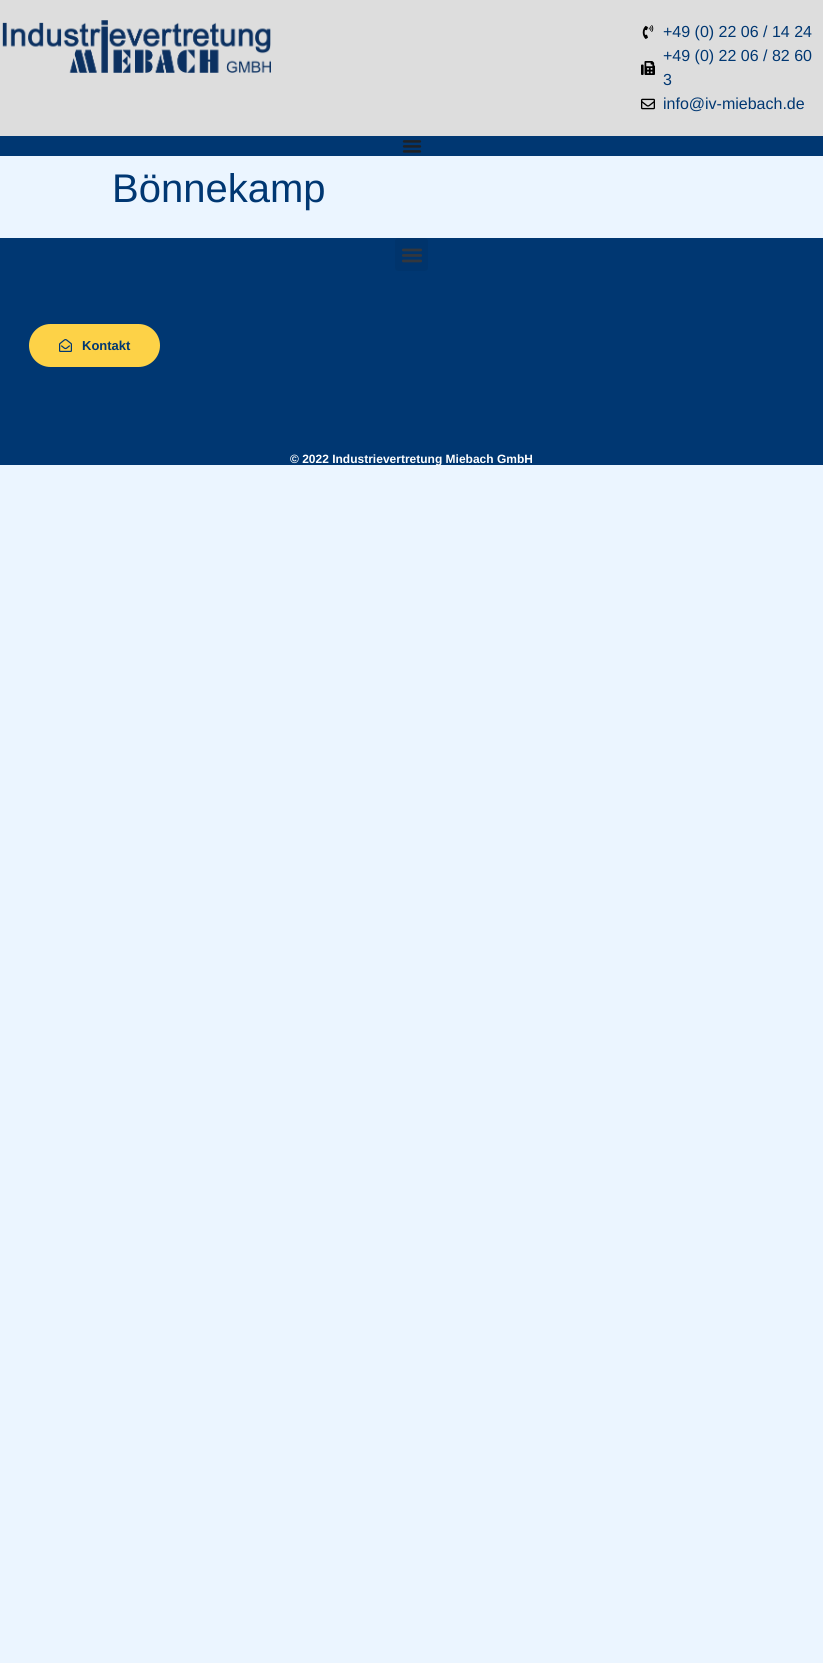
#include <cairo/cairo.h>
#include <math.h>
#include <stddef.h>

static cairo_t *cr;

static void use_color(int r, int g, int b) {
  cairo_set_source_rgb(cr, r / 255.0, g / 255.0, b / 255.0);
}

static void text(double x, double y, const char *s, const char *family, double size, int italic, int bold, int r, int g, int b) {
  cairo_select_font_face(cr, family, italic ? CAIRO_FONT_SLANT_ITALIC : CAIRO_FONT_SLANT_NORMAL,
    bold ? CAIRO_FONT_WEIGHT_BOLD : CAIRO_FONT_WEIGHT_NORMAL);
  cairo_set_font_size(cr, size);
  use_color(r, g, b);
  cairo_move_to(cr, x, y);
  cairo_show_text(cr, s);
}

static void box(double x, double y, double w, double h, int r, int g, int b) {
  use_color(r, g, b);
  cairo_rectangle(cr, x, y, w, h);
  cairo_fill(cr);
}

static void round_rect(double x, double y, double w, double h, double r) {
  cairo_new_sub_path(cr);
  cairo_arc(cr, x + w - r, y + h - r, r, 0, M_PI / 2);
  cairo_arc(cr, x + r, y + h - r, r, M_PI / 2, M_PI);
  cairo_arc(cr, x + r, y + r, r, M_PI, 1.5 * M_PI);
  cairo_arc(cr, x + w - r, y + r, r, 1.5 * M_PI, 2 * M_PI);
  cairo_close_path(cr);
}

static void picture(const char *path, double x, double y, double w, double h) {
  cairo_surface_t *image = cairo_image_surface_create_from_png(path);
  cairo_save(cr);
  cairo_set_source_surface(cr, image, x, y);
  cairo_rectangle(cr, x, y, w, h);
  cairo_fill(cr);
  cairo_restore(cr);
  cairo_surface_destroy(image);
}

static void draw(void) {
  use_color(235, 245, 255);
  cairo_paint(cr);
  box(0, 0, 823, 136, 221, 221, 221);
  picture("img_01.png", 2, 20, 269, 53);
  picture("img_02.png", 642, 25, 12, 14);
  picture("img_03.png", 641, 61, 14, 14);
  picture("img_04.png", 641, 98, 14, 12);
  box(0, 136, 823, 20, 0, 55, 114);
  picture("img_05.png", 402, 140, 20, 13);
  box(0, 238, 823, 227, 0, 55, 114);
  use_color(0, 52, 108);
  round_rect(395, 238, 33, 33, 3);
  cairo_fill(cr);
  picture("img_06.png", 402, 248, 20, 15);
  use_color(253, 210, 71);
  round_rect(27.5, 322.5, 134, 46, 23);
  cairo_fill_preserve(cr);
  use_color(0, 55, 114);
  cairo_set_line_width(cr, 3);
  cairo_stroke(cr);
  picture("img_07.png", 59, 339, 13, 13);
  text(663, 37, "+49 (0) 22 06 / 14 24", "Liberation Sans", 16, 0, 0, 0, 55, 114);
  text(663, 61, "+49 (0) 22 06 / 82 60", "Liberation Sans", 16, 0, 0, 0, 55, 114);
  text(663, 85, "3", "Liberation Sans", 16, 0, 0, 0, 55, 114);
  text(663, 109, "info@iv-miebach.de", "Liberation Sans", 16, 0, 0, 0, 55, 114);
  text(112, 202, "Bönnekamp", "Liberation Sans", 40, 0, 0, 0, 55, 114);
  text(82, 350, "Kontakt", "Liberation Sans", 13, 0, 1, 0, 55, 114);
  text(290, 463, "© 2022 Industrievertretung Miebach GmbH", "Liberation Sans", 12, 0, 1, 255, 255, 255);
}

int main(void) {
  cairo_surface_t *surface = cairo_image_surface_create(CAIRO_FORMAT_RGB24, 823, 1663);
  cr = cairo_create(surface);
  cairo_font_options_t *options = cairo_font_options_create();
  cairo_font_options_set_hint_metrics(options, CAIRO_HINT_METRICS_OFF);
  cairo_font_options_set_hint_style(options, CAIRO_HINT_STYLE_NONE);
  cairo_set_font_options(cr, options);
  cairo_set_miter_limit(cr, 4);
  draw();
  cairo_surface_write_to_png(surface, "out.png");
  cairo_font_options_destroy(options);
  cairo_destroy(cr);
  cairo_surface_destroy(surface);
  return 0;
}
